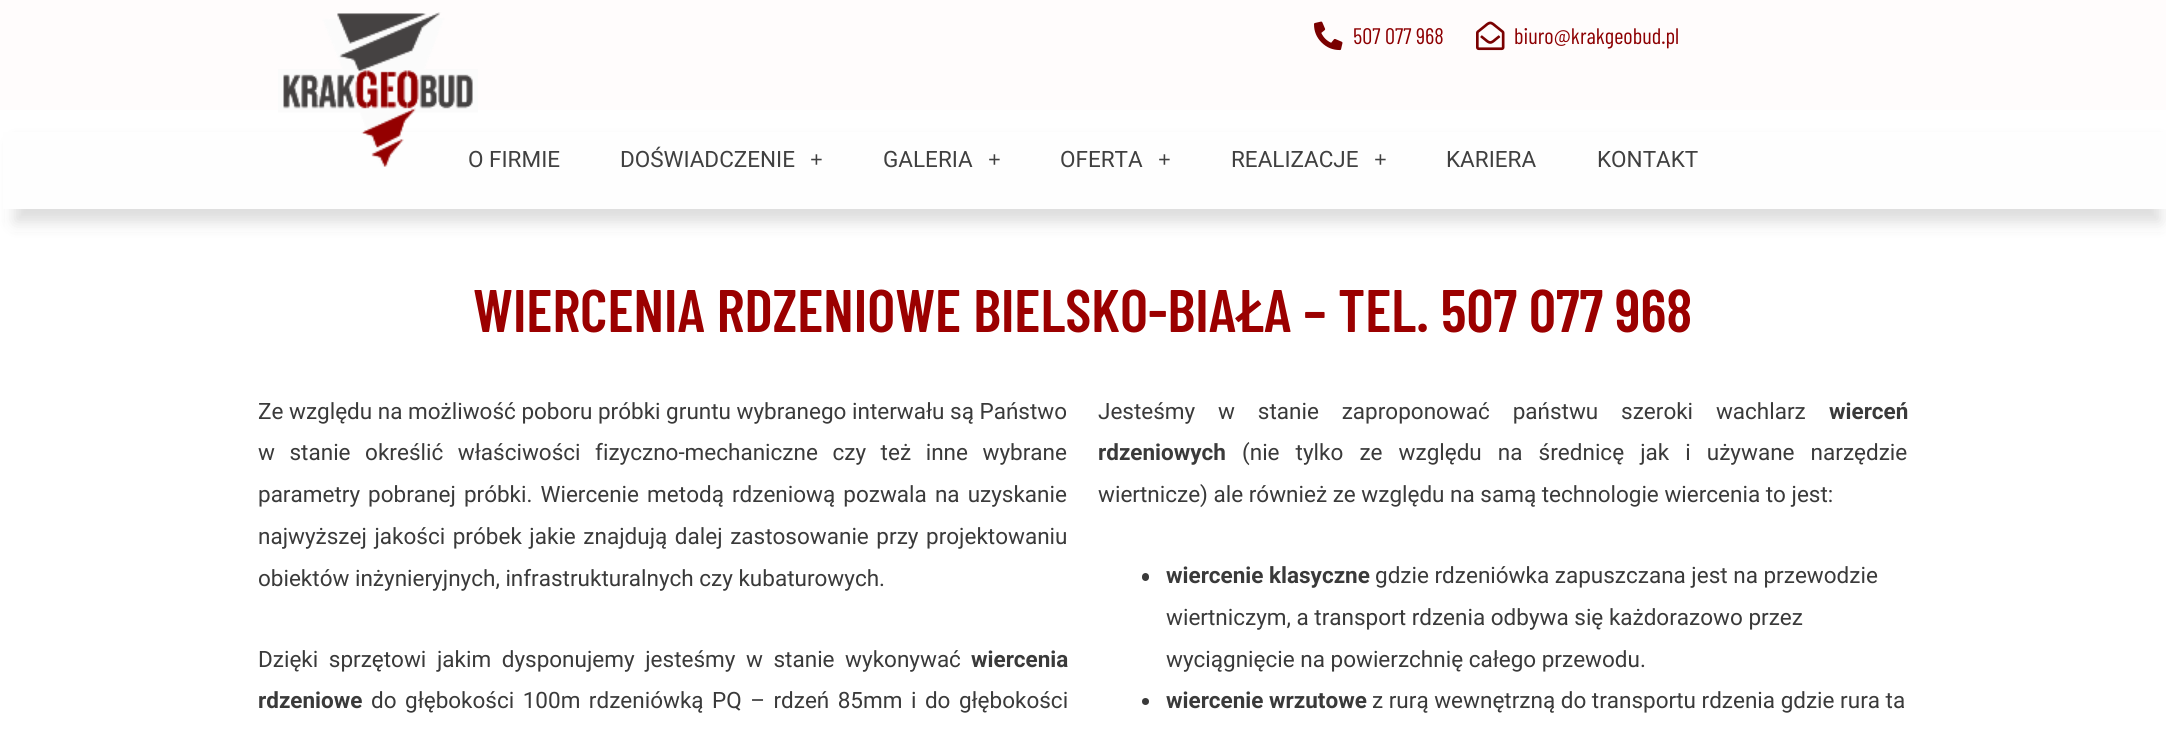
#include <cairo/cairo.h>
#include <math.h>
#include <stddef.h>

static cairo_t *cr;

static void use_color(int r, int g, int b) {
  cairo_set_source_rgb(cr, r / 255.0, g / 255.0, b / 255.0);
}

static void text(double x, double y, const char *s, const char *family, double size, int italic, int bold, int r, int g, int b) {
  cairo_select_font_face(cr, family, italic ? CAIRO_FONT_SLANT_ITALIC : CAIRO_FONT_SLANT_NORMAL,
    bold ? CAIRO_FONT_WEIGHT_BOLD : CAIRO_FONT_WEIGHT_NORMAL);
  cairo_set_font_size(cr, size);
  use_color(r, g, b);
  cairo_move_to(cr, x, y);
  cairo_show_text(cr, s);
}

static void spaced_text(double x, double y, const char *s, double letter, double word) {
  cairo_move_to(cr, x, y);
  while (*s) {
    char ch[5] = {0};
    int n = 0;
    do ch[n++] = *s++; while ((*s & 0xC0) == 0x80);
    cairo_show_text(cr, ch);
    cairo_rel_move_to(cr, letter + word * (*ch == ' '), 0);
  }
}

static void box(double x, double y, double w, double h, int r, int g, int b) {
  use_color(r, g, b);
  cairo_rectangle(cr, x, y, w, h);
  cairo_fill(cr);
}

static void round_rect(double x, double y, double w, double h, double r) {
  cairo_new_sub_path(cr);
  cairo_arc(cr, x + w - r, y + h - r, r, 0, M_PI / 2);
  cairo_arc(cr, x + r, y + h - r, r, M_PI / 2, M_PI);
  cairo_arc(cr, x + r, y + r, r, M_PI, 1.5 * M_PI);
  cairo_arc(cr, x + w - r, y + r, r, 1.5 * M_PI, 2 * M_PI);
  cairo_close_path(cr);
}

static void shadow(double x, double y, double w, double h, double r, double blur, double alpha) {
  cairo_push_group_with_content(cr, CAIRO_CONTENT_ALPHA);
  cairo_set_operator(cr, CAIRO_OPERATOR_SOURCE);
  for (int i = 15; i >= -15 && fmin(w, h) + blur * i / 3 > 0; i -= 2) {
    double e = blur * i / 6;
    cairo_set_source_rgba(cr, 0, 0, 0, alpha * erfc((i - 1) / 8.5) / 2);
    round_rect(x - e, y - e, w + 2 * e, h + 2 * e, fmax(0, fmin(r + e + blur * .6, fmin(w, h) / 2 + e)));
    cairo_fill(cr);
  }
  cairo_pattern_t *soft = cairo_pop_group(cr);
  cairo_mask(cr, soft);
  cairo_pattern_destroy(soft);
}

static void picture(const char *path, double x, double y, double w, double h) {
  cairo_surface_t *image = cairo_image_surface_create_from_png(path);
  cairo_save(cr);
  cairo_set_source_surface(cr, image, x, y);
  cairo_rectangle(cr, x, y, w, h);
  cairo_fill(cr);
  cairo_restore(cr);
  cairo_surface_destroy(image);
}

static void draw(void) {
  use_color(255, 255, 255);
  cairo_paint(cr);
  box(0, 0, 2166, 110, 255, 252, 252);
  use_color(0, 0, 0);
  shadow(15, 144, 2145, 78, 0, 7.5, 0.25);
  box(3, 132, 2163, 77, 254, 254, 254);
  picture("img_01.png", 278, 12, 200, 155);
  picture("img_02.png", 1314, 21, 29, 30);
  picture("img_03.png", 1476, 21, 29, 30);
  cairo_set_source_rgba(cr, 1, 1, 1, 0.46);
  cairo_rectangle(cr, 5, 209, 2161, 23);
  cairo_fill(cr);
  use_color(58, 58, 58);
  round_rect(1142, 573, 7, 8, 3.5);
  cairo_fill(cr);
  cairo_arc(cr, 1145.5, 701.5, 3.5, 0, 2 * M_PI);
  cairo_fill(cr);
  text(1353, 44, "507 077 968", "Barlow Condensed", 22.5, 0, 0, 141, 0, 2);
  text(1514, 44, "biuro@krakgeobud.pl", "Barlow Condensed", 22.5, 0, 0, 141, 0, 2);
  text(468, 167, "O FIRMIE", "Roboto", 22.5, 0, 0, 64, 64, 64);
  text(620, 167, "DOŚWIADCZENIE", "Roboto", 22.5, 0, 0, 64, 64, 64);
  text(810, 167, "+", "Liberation Serif", 22.5, 0, 1, 64, 64, 64);
  text(883, 167, "GALERIA", "Roboto", 22.5, 0, 0, 64, 64, 64);
  text(988, 167, "+", "Liberation Serif", 22.5, 0, 1, 64, 64, 64);
  text(1060, 167, "OFERTA", "Roboto", 22.5, 0, 0, 64, 64, 64);
  text(1158, 167, "+", "Liberation Serif", 22.5, 0, 1, 64, 64, 64);
  text(1231, 167, "REALIZACJE", "Roboto", 22.5, 0, 0, 64, 64, 64);
  text(1374, 167, "+", "Liberation Serif", 22.5, 0, 1, 64, 64, 64);
  text(1446, 167, "KARIERA", "Roboto", 22.5, 0, 0, 64, 64, 64);
  text(1597, 167, "KONTAKT", "Roboto", 22.5, 0, 0, 64, 64, 64);
  text(473, 332, "WIERCENIA RDZENIOWE BIELSKO-BIAŁA – TEL. 507 077 968", "Barlow Condensed SemiBold", 60, 0, 0, 155, 0, 0);
  text(258, 419, "Ze względu na możliwość poboru próbki gruntu wybranego interwału są Państwo", "Roboto", 22.5, 0, 0, 58, 58, 58);
  spaced_text(258, 460, "w stanie określić właściwości fizyczno-mechaniczne czy też inne wybrane", 0, 9);
  spaced_text(258, 502, "parametry pobranej próbki. Wiercenie metodą rdzeniową pozwala na uzyskanie", 0, 2.5);
  spaced_text(258, 544, "najwyższej jakości próbek jakie znajdują dalej zastosowanie przy projektowaniu", 0, 2);
  text(258, 586, "obiektów inżynieryjnych, infrastrukturalnych czy kubaturowych.", "Roboto", 22.5, 0, 0, 58, 58, 58);
  spaced_text(1098, 419, "Jesteśmy w stanie zaproponować państwu szeroki wachlarz", 0, 17.25);
  text(1829, 419, "wierceń", "Roboto", 22.5, 0, 1, 58, 58, 58);
  text(1098, 460, "rdzeniowych", "Roboto", 22.5, 0, 1, 58, 58, 58);
  cairo_select_font_face(cr, "Roboto", CAIRO_FONT_SLANT_NORMAL, CAIRO_FONT_WEIGHT_NORMAL);
  spaced_text(1242, 460, "(nie tylko ze względu na średnicę jak i używane narzędzie", 0, 10.5);
  text(1098, 502, "wiertnicze) ale również ze względu na samą technologie wiercenia to jest:", "Roboto", 22.5, 0, 0, 58, 58, 58);
  spaced_text(258, 667, "Dzięki sprzętowi jakim dysponujemy jesteśmy w stanie wykonywać", 0, 5);
  text(971, 667, "wiercenia", "Roboto", 22.5, 0, 1, 58, 58, 58);
  text(258, 708, "rdzeniowe", "Roboto", 22.5, 0, 1, 58, 58, 58);
  cairo_select_font_face(cr, "Roboto", CAIRO_FONT_SLANT_NORMAL, CAIRO_FONT_WEIGHT_NORMAL);
  spaced_text(371, 708, "do głębokości 100m rdzeniówką PQ – rdzeń 85mm i do głębokości", 0, 2.9);
  text(1166, 583, "wiercenie klasyczne", "Roboto", 22.5, 0, 1, 58, 58, 58);
  text(1375, 583, "gdzie rdzeniówka zapuszczana jest na przewodzie", "Roboto", 22.5, 0, 0, 58, 58, 58);
  text(1166, 625, "wiertniczym, a transport rdzenia odbywa się każdorazowo przez", "Roboto", 22.5, 0, 0, 58, 58, 58);
  text(1166, 667, "wyciągnięcie na powierzchnię całego przewodu.", "Roboto", 22.5, 0, 0, 58, 58, 58);
  text(1166, 708, "wiercenie wrzutowe", "Roboto", 22.5, 0, 1, 58, 58, 58);
  text(1372, 708, "z rurą wewnętrzną do transportu rdzenia gdzie rura ta", "Roboto", 22.5, 0, 0, 58, 58, 58);
}

int main(void) {
  cairo_surface_t *surface = cairo_image_surface_create(CAIRO_FORMAT_RGB24, 2166, 738);
  cr = cairo_create(surface);
  cairo_font_options_t *options = cairo_font_options_create();
  cairo_font_options_set_hint_metrics(options, CAIRO_HINT_METRICS_OFF);
  cairo_font_options_set_hint_style(options, CAIRO_HINT_STYLE_NONE);
  cairo_set_font_options(cr, options);
  cairo_set_miter_limit(cr, 4);
  draw();
  cairo_surface_write_to_png(surface, "out.png");
  cairo_font_options_destroy(options);
  cairo_destroy(cr);
  cairo_surface_destroy(surface);
  return 0;
}
